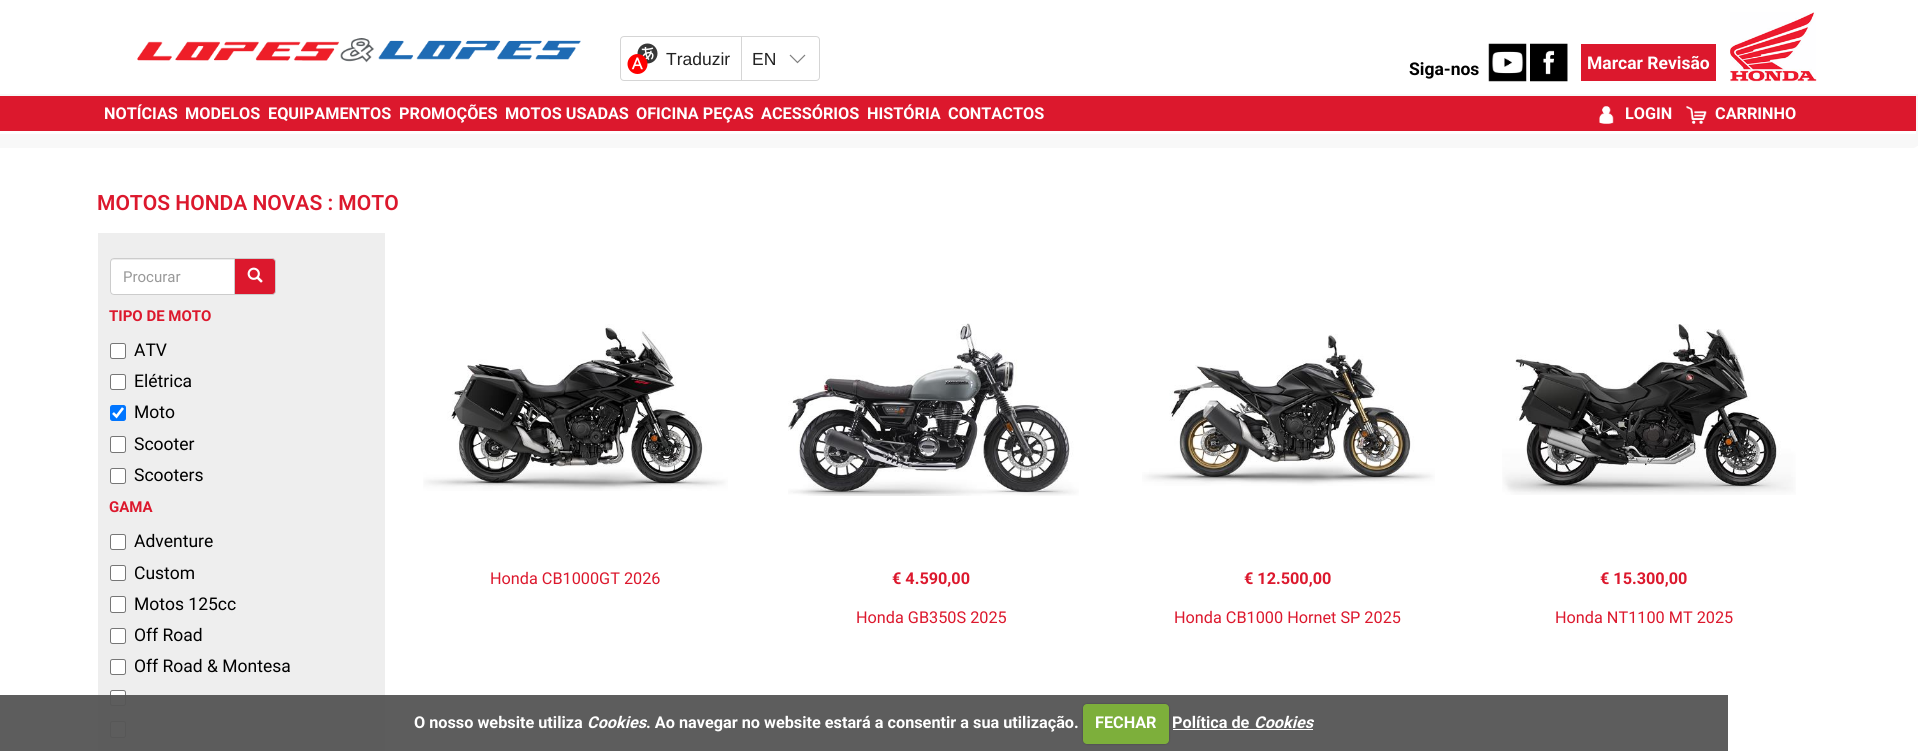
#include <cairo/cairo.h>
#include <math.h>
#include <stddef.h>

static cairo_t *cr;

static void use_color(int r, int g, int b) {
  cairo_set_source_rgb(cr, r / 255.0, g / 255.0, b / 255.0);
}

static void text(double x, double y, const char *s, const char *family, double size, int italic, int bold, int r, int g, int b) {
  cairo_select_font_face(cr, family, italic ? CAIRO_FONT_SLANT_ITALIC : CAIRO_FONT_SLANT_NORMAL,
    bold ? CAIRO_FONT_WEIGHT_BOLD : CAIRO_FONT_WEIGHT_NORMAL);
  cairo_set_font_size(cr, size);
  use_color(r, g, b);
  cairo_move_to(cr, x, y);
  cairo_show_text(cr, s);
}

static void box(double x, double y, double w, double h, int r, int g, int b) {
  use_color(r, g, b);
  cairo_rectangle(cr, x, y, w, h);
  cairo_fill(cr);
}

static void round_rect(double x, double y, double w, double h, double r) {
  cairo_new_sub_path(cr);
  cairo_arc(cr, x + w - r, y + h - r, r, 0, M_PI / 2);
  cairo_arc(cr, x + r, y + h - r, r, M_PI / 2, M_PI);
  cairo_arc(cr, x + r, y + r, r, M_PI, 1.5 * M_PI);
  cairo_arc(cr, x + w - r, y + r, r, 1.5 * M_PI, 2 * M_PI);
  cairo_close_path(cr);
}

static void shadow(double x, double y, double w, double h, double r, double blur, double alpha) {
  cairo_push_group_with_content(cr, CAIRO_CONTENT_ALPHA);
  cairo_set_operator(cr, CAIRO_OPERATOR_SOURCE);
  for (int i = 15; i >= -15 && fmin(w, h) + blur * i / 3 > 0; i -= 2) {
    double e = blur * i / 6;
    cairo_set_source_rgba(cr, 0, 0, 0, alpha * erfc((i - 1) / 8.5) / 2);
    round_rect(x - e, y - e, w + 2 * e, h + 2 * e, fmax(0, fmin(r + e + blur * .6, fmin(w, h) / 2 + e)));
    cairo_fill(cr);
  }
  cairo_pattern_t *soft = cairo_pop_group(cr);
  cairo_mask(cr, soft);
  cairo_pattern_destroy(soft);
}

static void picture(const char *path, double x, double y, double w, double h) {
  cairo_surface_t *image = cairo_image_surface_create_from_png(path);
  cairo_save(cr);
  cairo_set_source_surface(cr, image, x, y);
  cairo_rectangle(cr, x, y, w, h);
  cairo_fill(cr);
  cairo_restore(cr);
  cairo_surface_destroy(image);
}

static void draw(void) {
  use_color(255, 255, 255);
  cairo_paint(cr);
  picture("img_01.png", 137, 38, 444, 25);
  cairo_new_path(cr);
  cairo_move_to(cr, 624, 36.5);
  cairo_line_to(cr, 742.5, 36.5);
  cairo_line_to(cr, 742.5, 80.5);
  cairo_line_to(cr, 624, 80.5);
  cairo_curve_to(cr, 622, 80.5, 620.5, 79, 620.5, 77);
  cairo_line_to(cr, 620.5, 40);
  cairo_curve_to(cr, 620.5, 38, 622, 36.5, 624, 36.5);
  cairo_close_path(cr);
  use_color(213, 213, 213);
  cairo_set_line_width(cr, 1);
  cairo_stroke(cr);
  picture("img_02.png", 627, 43, 31, 31);
  use_color(255, 255, 255);
  cairo_new_path(cr);
  cairo_move_to(cr, 741.5, 36.5);
  cairo_line_to(cr, 816, 36.5);
  cairo_curve_to(cr, 818, 36.5, 819.5, 38, 819.5, 40);
  cairo_line_to(cr, 819.5, 77);
  cairo_curve_to(cr, 819.5, 79, 818, 80.5, 816, 80.5);
  cairo_line_to(cr, 741.5, 80.5);
  cairo_close_path(cr);
  cairo_fill_preserve(cr);
  use_color(213, 213, 213);
  cairo_stroke(cr);
  picture("img_03.png", 789, 54, 17, 10);
  picture("img_04.png", 1488, 43, 39, 39);
  picture("img_05.png", 1530, 43, 38, 39);
  box(1581, 44, 135, 37, 220, 24, 45);
  picture("img_06.png", 1730, 12, 87, 70);
  box(0, 94, 1918, 52, 248, 248, 248);
  round_rect(-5, 95, 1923, 53, 5);
  cairo_fill(cr);
  box(0, 96, 1916, 35, 220, 24, 45);
  box(0, 131, 1916, 3, 255, 255, 255);
  picture("img_07.png", 1599, 106, 15, 18);
  picture("img_08.png", 1686, 106, 21, 18);
  box(98, 233, 287, 518, 238, 238, 238);
  use_color(255, 255, 255);
  cairo_new_path(cr);
  cairo_move_to(cr, 114, 258);
  cairo_line_to(cr, 235, 258);
  cairo_line_to(cr, 235, 295);
  cairo_line_to(cr, 114, 295);
  cairo_curve_to(cr, 112, 295, 110, 293, 110, 291);
  cairo_line_to(cr, 110, 262);
  cairo_curve_to(cr, 110, 260, 112, 258, 114, 258);
  cairo_close_path(cr);
  cairo_fill(cr);
  use_color(236, 236, 236);
  cairo_new_path(cr);
  cairo_move_to(cr, 114, 260);
  cairo_line_to(cr, 234, 260);
  cairo_line_to(cr, 234, 259);
  cairo_line_to(cr, 113, 259);
  cairo_curve_to(cr, 111, 260, 111, 261, 111, 262);
  cairo_curve_to(cr, 111, 261, 112, 260, 114, 260);
  cairo_close_path(cr);
  cairo_fill(cr);
  cairo_new_path(cr);
  cairo_move_to(cr, 114, 258.5);
  cairo_line_to(cr, 234.5, 258.5);
  cairo_line_to(cr, 234.5, 294.5);
  cairo_line_to(cr, 114, 294.5);
  cairo_curve_to(cr, 112, 294.5, 110.5, 293, 110.5, 291);
  cairo_line_to(cr, 110.5, 262);
  cairo_curve_to(cr, 110.5, 260, 112, 258.5, 114, 258.5);
  cairo_close_path(cr);
  use_color(204, 204, 204);
  cairo_stroke(cr);
  use_color(220, 24, 45);
  cairo_new_path(cr);
  cairo_move_to(cr, 234.5, 258.5);
  cairo_line_to(cr, 272, 258.5);
  cairo_curve_to(cr, 274, 258.5, 275.5, 260, 275.5, 262);
  cairo_line_to(cr, 275.5, 291);
  cairo_curve_to(cr, 275.5, 293, 274, 294.5, 272, 294.5);
  cairo_line_to(cr, 234.5, 294.5);
  cairo_close_path(cr);
  cairo_fill_preserve(cr);
  use_color(204, 204, 204);
  cairo_stroke(cr);
  picture("img_09.png", 247, 267, 16, 16);
  use_color(255, 255, 255);
  round_rect(110.5, 343.5, 15, 15, 2);
  cairo_fill_preserve(cr);
  use_color(118, 118, 118);
  cairo_stroke(cr);
  use_color(255, 255, 255);
  round_rect(110.5, 374.5, 15, 15, 2);
  cairo_fill_preserve(cr);
  use_color(118, 118, 118);
  cairo_stroke(cr);
  use_color(0, 117, 255);
  round_rect(110, 405, 16, 16, 2.5);
  cairo_fill(cr);
  cairo_new_path(cr);
  cairo_move_to(cr, 113, 413);
  cairo_line_to(cr, 116.5, 416.5);
  cairo_line_to(cr, 123, 408);
  use_color(255, 255, 255);
  cairo_set_line_width(cr, 2.6);
  cairo_stroke(cr);
  round_rect(110.5, 436.5, 15, 16, 2);
  cairo_fill_preserve(cr);
  use_color(118, 118, 118);
  cairo_set_line_width(cr, 1);
  cairo_stroke(cr);
  use_color(255, 255, 255);
  round_rect(110.5, 468.5, 15, 15, 2);
  cairo_fill_preserve(cr);
  use_color(118, 118, 118);
  cairo_stroke(cr);
  use_color(255, 255, 255);
  round_rect(110.5, 534.5, 15, 15, 2);
  cairo_fill_preserve(cr);
  use_color(118, 118, 118);
  cairo_stroke(cr);
  use_color(255, 255, 255);
  round_rect(110.5, 565.5, 15, 15, 2);
  cairo_fill_preserve(cr);
  use_color(118, 118, 118);
  cairo_stroke(cr);
  use_color(255, 255, 255);
  round_rect(110.5, 596.5, 15, 16, 2);
  cairo_fill_preserve(cr);
  use_color(118, 118, 118);
  cairo_stroke(cr);
  use_color(255, 255, 255);
  round_rect(110.5, 628.5, 15, 15, 2);
  cairo_fill_preserve(cr);
  use_color(118, 118, 118);
  cairo_stroke(cr);
  use_color(255, 255, 255);
  round_rect(110.5, 659.5, 15, 15, 2);
  cairo_fill_preserve(cr);
  use_color(118, 118, 118);
  cairo_stroke(cr);
  use_color(255, 255, 255);
  round_rect(110.5, 690.5, 15, 15, 2);
  cairo_fill_preserve(cr);
  use_color(118, 118, 118);
  cairo_stroke(cr);
  use_color(255, 255, 255);
  round_rect(110.5, 721.5, 15, 16, 2);
  cairo_fill_preserve(cr);
  use_color(118, 118, 118);
  cairo_stroke(cr);
  picture("img_10.png", 423, 324, 305, 167);
  picture("img_11.png", 788, 323, 291, 173);
  picture("img_12.png", 1142, 334, 293, 152);
  picture("img_13.png", 1502, 324, 294, 171);
  cairo_set_source_rgba(cr, 0.337, 0.337, 0.337, 0.95);
  cairo_rectangle(cr, 0, 695, 1728, 56);
  cairo_fill(cr);
  use_color(0, 0, 0);
  shadow(1083, 704, 86, 40, 4, 1, 0.25);
  use_color(125, 175, 59);
  round_rect(1083, 704, 86, 40, 4);
  cairo_fill(cr);
  box(1173, 729, 140, 1, 255, 255, 255);
  text(666, 65, "Traduzir", "Liberation Sans", 17.5, 0, 0, 34, 34, 34);
  text(752, 65, "EN", "Liberation Sans", 17.5, 0, 0, 34, 34, 34);
  text(1409, 75, "Siga-nos", "Roboto", 17.5, 0, 1, 0, 0, 0);
  text(1587, 69, "Marcar Revisão", "Roboto", 17.5, 0, 1, 255, 255, 255);
  text(104, 119, "NOTÍCIAS", "Roboto", 16.25, 0, 1, 255, 255, 255);
  text(185, 119, "MODELOS", "Roboto", 16.25, 0, 1, 255, 255, 255);
  text(268, 119, "EQUIPAMENTOS", "Roboto", 16.25, 0, 1, 255, 255, 255);
  text(399, 119, "PROMOÇÕES", "Roboto", 16.25, 0, 1, 255, 255, 255);
  text(505, 119, "MOTOS USADAS", "Roboto", 16.25, 0, 1, 255, 255, 255);
  text(636, 119, "OFICINA PEÇAS", "Roboto", 16.25, 0, 1, 255, 255, 255);
  text(761, 119, "ACESSÓRIOS", "Roboto", 16.25, 0, 1, 255, 255, 255);
  text(867, 119, "HISTÓRIA", "Roboto", 16.25, 0, 1, 255, 255, 255);
  text(948, 119, "CONTACTOS", "Roboto", 16.25, 0, 1, 255, 255, 255);
  text(1625, 119, "LOGIN", "Roboto", 16.25, 0, 1, 255, 255, 255);
  text(1715, 119, "CARRINHO", "Roboto", 16.25, 0, 1, 255, 255, 255);
  text(97, 210, "MOTOS HONDA NOVAS : MOTO", "Roboto SemiBold", 21, 0, 0, 220, 24, 45);
  text(123, 282, "Procurar", "Roboto", 15, 0, 0, 153, 153, 153);
  text(109, 321, "TIPO DE MOTO", "Roboto", 15, 0, 1, 220, 24, 45);
  text(134, 356, "ATV", "Roboto", 17.5, 0, 0, 0, 0, 0);
  text(134, 387, "Elétrica", "Roboto", 17.5, 0, 0, 0, 0, 0);
  text(134, 418, "Moto", "Roboto", 17.5, 0, 0, 0, 0, 0);
  text(134, 450, "Scooter", "Roboto", 17.5, 0, 0, 0, 0, 0);
  text(134, 481, "Scooters", "Roboto", 17.5, 0, 0, 0, 0, 0);
  text(109, 512, "GAMA", "Roboto", 15, 0, 1, 220, 24, 45);
  text(134, 547, "Adventure", "Roboto", 17.5, 0, 0, 0, 0, 0);
  text(134, 579, "Custom", "Roboto", 17.5, 0, 0, 0, 0, 0);
  text(134, 610, "Motos 125cc", "Roboto", 17.5, 0, 0, 0, 0, 0);
  text(134, 641, "Off Road", "Roboto", 17.5, 0, 0, 0, 0, 0);
  text(134, 672, "Off Road & Montesa", "Roboto", 17.5, 0, 0, 0, 0, 0);
  text(490, 584, "Honda CB1000GT 2026", "Roboto", 16.25, 0, 0, 220, 24, 45);
  text(892, 584, "€ 4.590,00", "Roboto", 16.25, 0, 1, 220, 24, 45);
  text(856, 623, "Honda GB350S 2025", "Roboto", 16.25, 0, 0, 220, 24, 45);
  text(1244, 584, "€ 12.500,00", "Roboto", 16.25, 0, 1, 220, 24, 45);
  text(1174, 623, "Honda CB1000 Hornet SP 2025", "Roboto", 16.25, 0, 0, 220, 24, 45);
  text(1600, 584, "€ 15.300,00", "Roboto", 16.25, 0, 1, 220, 24, 45);
  text(1555, 623, "Honda NT1100 MT 2025", "Roboto", 16.25, 0, 0, 220, 24, 45);
  text(414, 728, "O nosso website utiliza", "Roboto", 16.25, 0, 1, 255, 255, 255);
  text(587, 728, "Cookies", "Roboto", 16.25, 1, 1, 255, 255, 255);
  text(646, 728, ". Ao navegar no website estará a consentir a sua utilização.", "Roboto", 16.25, 0, 1, 255, 255, 255);
  text(1095, 728, "FECHAR", "Roboto", 16.25, 0, 1, 255, 255, 255);
  text(1172, 728, "Política de", "Roboto", 16.25, 0, 1, 255, 255, 255);
  text(1254, 728, "Cookies", "Roboto", 16.25, 1, 1, 255, 255, 255);
}

int main(void) {
  cairo_surface_t *surface = cairo_image_surface_create(CAIRO_FORMAT_RGB24, 1918, 751);
  cr = cairo_create(surface);
  cairo_font_options_t *options = cairo_font_options_create();
  cairo_font_options_set_hint_metrics(options, CAIRO_HINT_METRICS_OFF);
  cairo_font_options_set_hint_style(options, CAIRO_HINT_STYLE_NONE);
  cairo_set_font_options(cr, options);
  cairo_set_miter_limit(cr, 4);
  draw();
  cairo_surface_write_to_png(surface, "out.png");
  cairo_font_options_destroy(options);
  cairo_destroy(cr);
  cairo_surface_destroy(surface);
  return 0;
}
